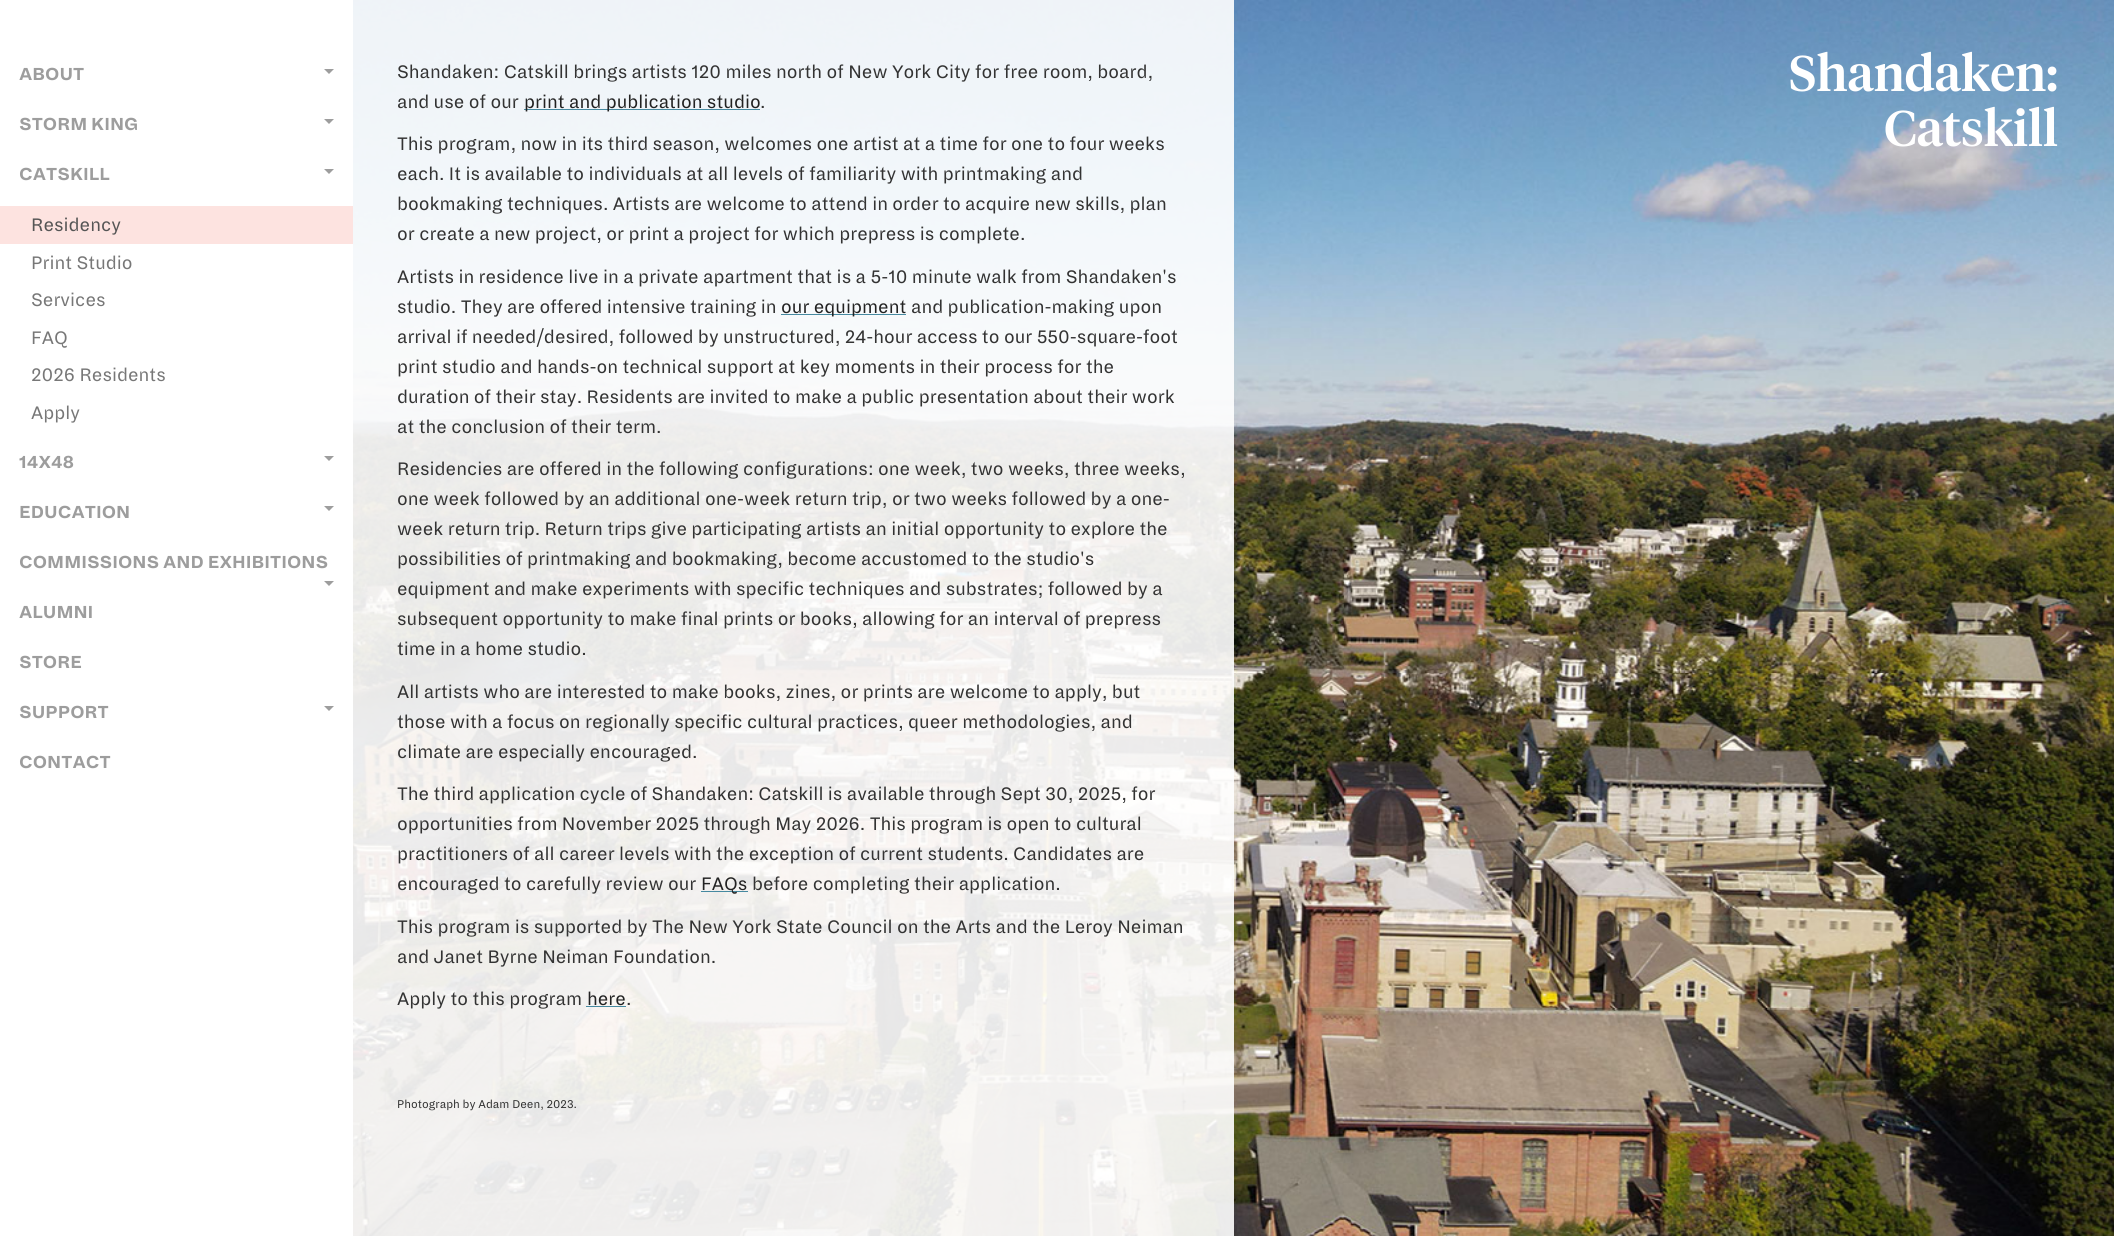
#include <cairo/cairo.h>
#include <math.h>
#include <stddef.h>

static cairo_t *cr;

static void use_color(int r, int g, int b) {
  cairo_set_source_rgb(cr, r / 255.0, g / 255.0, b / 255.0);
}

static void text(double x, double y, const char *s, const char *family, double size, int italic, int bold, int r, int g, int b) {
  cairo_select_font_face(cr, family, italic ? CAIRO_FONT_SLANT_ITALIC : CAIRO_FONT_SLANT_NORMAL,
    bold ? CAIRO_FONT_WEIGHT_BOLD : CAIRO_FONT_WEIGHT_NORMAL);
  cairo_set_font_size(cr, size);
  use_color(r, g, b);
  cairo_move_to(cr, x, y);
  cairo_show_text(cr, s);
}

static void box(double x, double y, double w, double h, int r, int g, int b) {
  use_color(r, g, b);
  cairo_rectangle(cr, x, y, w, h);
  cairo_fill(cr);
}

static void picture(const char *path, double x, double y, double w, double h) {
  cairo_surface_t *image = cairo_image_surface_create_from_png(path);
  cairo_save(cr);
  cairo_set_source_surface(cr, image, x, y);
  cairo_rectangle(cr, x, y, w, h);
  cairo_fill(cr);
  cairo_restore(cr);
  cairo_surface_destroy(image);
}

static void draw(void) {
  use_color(255, 255, 255);
  cairo_paint(cr);
  use_color(157, 157, 157);
  cairo_new_path(cr);
  cairo_move_to(cr, 324, 69);
  cairo_line_to(cr, 334, 69);
  cairo_line_to(cr, 329, 74);
  cairo_close_path(cr);
  cairo_fill(cr);
  cairo_new_path(cr);
  cairo_move_to(cr, 324, 119);
  cairo_line_to(cr, 334, 119);
  cairo_line_to(cr, 329, 124);
  cairo_close_path(cr);
  cairo_fill(cr);
  cairo_new_path(cr);
  cairo_move_to(cr, 324, 169);
  cairo_line_to(cr, 334, 169);
  cairo_line_to(cr, 329, 174);
  cairo_close_path(cr);
  cairo_fill(cr);
  box(0, 206, 353, 38, 253, 227, 224);
  use_color(157, 157, 157);
  cairo_new_path(cr);
  cairo_move_to(cr, 324, 456);
  cairo_line_to(cr, 334, 456);
  cairo_line_to(cr, 329, 461);
  cairo_close_path(cr);
  cairo_fill(cr);
  cairo_new_path(cr);
  cairo_move_to(cr, 324, 506);
  cairo_line_to(cr, 334, 506);
  cairo_line_to(cr, 329, 511);
  cairo_close_path(cr);
  cairo_fill(cr);
  cairo_new_path(cr);
  cairo_move_to(cr, 324, 581);
  cairo_line_to(cr, 334, 581);
  cairo_line_to(cr, 329, 586);
  cairo_close_path(cr);
  cairo_fill(cr);
  cairo_new_path(cr);
  cairo_move_to(cr, 324, 706);
  cairo_line_to(cr, 334, 706);
  cairo_line_to(cr, 329, 711);
  cairo_close_path(cr);
  cairo_fill(cr);
  picture("img_01.png", 353, 0, 1761, 1236);
  cairo_set_source_rgba(cr, 1, 1, 1, 0.9);
  cairo_rectangle(cr, 353, 0, 881, 1236);
  cairo_fill(cr);
  box(524, 109, 236, 1, 70, 137, 160);
  box(781, 314, 125, 1, 70, 137, 160);
  box(701, 891, 47, 1, 70, 137, 160);
  box(586, 1006, 40, 1, 70, 137, 160);
  text(19, 80, "ABOUT", "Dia", 19.25, 0, 1, 157, 157, 157);
  text(19, 130, "STORM KING", "Dia", 19.25, 0, 1, 157, 157, 157);
  text(19, 180, "CATSKILL", "Dia", 19.25, 0, 1, 157, 157, 157);
  text(31, 231, "Residency", "Dia", 20, 0, 0, 85, 85, 85);
  text(31, 269, "Print Studio", "Dia", 20, 0, 0, 119, 119, 119);
  text(31, 306, "Services", "Dia", 20, 0, 0, 119, 119, 119);
  text(31, 344, "FAQ", "Dia", 20, 0, 0, 119, 119, 119);
  text(31, 381, "2026 Residents", "Dia", 20, 0, 0, 119, 119, 119);
  text(31, 419, "Apply", "Dia", 20, 0, 0, 119, 119, 119);
  text(19, 468, "14X48", "Dia", 19.25, 0, 1, 157, 157, 157);
  text(19, 518, "EDUCATION", "Dia", 19.25, 0, 1, 157, 157, 157);
  text(19, 568, "COMMISSIONS AND EXHIBITIONS", "Dia", 19.25, 0, 1, 157, 157, 157);
  text(19, 618, "ALUMNI", "Dia", 19.25, 0, 1, 157, 157, 157);
  text(19, 668, "STORE", "Dia", 19.25, 0, 1, 157, 157, 157);
  text(19, 718, "SUPPORT", "Dia", 19.25, 0, 1, 157, 157, 157);
  text(19, 768, "CONTACT", "Dia", 19.25, 0, 1, 157, 157, 157);
  text(397, 78, "Shandaken: Catskill brings artists 120 miles north of New York City for free room, board,", "Dia", 20, 0, 0, 51, 51, 51);
  text(397, 108, "and use of our", "Dia", 20, 0, 0, 51, 51, 51);
  text(524, 108, "print and publication studio", "Dia", 20, 0, 0, 34, 34, 34);
  text(760, 108, ".", "Dia", 20, 0, 0, 51, 51, 51);
  text(397, 150, "This program, now in its third season, welcomes one artist at a time for one to four weeks", "Dia", 20, 0, 0, 51, 51, 51);
  text(397, 180, "each. It is available to individuals at all levels of familiarity with printmaking and", "Dia", 20, 0, 0, 51, 51, 51);
  text(397, 210, "bookmaking techniques. Artists are welcome to attend in order to acquire new skills, plan", "Dia", 20, 0, 0, 51, 51, 51);
  text(397, 240, "or create a new project, or print a project for which prepress is complete.", "Dia", 20, 0, 0, 51, 51, 51);
  text(397, 283, "Artists in residence live in a private apartment that is a 5-10 minute walk from Shandaken's", "Dia", 20, 0, 0, 51, 51, 51);
  text(397, 313, "studio. They are offered intensive training in", "Dia", 20, 0, 0, 51, 51, 51);
  text(781, 313, "our equipment", "Dia", 20, 0, 0, 34, 34, 34);
  text(911, 313, "and publication-making upon", "Dia", 20, 0, 0, 51, 51, 51);
  text(397, 343, "arrival if needed/desired, followed by unstructured, 24-hour access to our 550-square-foot", "Dia", 20, 0, 0, 51, 51, 51);
  text(397, 373, "print studio and hands-on technical support at key moments in their process for the", "Dia", 20, 0, 0, 51, 51, 51);
  text(397, 403, "duration of their stay. Residents are invited to make a public presentation about their work", "Dia", 20, 0, 0, 51, 51, 51);
  text(397, 433, "at the conclusion of their term.", "Dia", 20, 0, 0, 51, 51, 51);
  text(397, 475, "Residencies are offered in the following configurations: one week, two weeks, three weeks,", "Dia", 20, 0, 0, 51, 51, 51);
  text(397, 505, "one week followed by an additional one-week return trip, or two weeks followed by a one-", "Dia", 20, 0, 0, 51, 51, 51);
  text(397, 535, "week return trip. Return trips give participating artists an initial opportunity to explore the", "Dia", 20, 0, 0, 51, 51, 51);
  text(397, 565, "possibilities of printmaking and bookmaking, become accustomed to the studio's", "Dia", 20, 0, 0, 51, 51, 51);
  text(397, 595, "equipment and make experiments with specific techniques and substrates; followed by a", "Dia", 20, 0, 0, 51, 51, 51);
  text(397, 625, "subsequent opportunity to make final prints or books, allowing for an interval of prepress", "Dia", 20, 0, 0, 51, 51, 51);
  text(397, 655, "time in a home studio.", "Dia", 20, 0, 0, 51, 51, 51);
  text(397, 698, "All artists who are interested to make books, zines, or prints are welcome to apply, but", "Dia", 20, 0, 0, 51, 51, 51);
  text(397, 728, "those with a focus on regionally specific cultural practices, queer methodologies, and", "Dia", 20, 0, 0, 51, 51, 51);
  text(397, 758, "climate are especially encouraged.", "Dia", 20, 0, 0, 51, 51, 51);
  text(397, 800, "The third application cycle of Shandaken: Catskill is available through Sept 30, 2025, for", "Dia", 20, 0, 0, 51, 51, 51);
  text(397, 830, "opportunities from November 2025 through May 2026. This program is open to cultural", "Dia", 20, 0, 0, 51, 51, 51);
  text(397, 860, "practitioners of all career levels with the exception of current students. Candidates are", "Dia", 20, 0, 0, 51, 51, 51);
  text(397, 890, "encouraged to carefully review our", "Dia", 20, 0, 0, 51, 51, 51);
  text(701, 890, "FAQs", "Dia", 20, 0, 0, 34, 34, 34);
  text(752, 890, "before completing their application.", "Dia", 20, 0, 0, 51, 51, 51);
  text(397, 933, "This program is supported by The New York State Council on the Arts and the Leroy Neiman", "Dia", 20, 0, 0, 51, 51, 51);
  text(397, 963, "and Janet Byrne Neiman Foundation.", "Dia", 20, 0, 0, 51, 51, 51);
  text(397, 1005, "Apply to this program", "Dia", 20, 0, 0, 51, 51, 51);
  text(587, 1005, "here", "Dia", 20, 0, 0, 34, 34, 34);
  text(626, 1005, ".", "Dia", 20, 0, 0, 51, 51, 51);
  text(397, 1108, "Photograph by Adam Deen, 2023.", "Dia", 12.5, 0, 0, 51, 51, 51);
  text(1789, 91, "Shandaken:", "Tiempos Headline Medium", 50, 0, 0, 255, 255, 255);
  text(1884, 146, "Catskill", "Tiempos Headline Medium", 50, 0, 0, 255, 255, 255);
}

int main(void) {
  cairo_surface_t *surface = cairo_image_surface_create(CAIRO_FORMAT_RGB24, 2114, 1236);
  cr = cairo_create(surface);
  cairo_font_options_t *options = cairo_font_options_create();
  cairo_font_options_set_hint_metrics(options, CAIRO_HINT_METRICS_OFF);
  cairo_font_options_set_hint_style(options, CAIRO_HINT_STYLE_NONE);
  cairo_set_font_options(cr, options);
  cairo_set_miter_limit(cr, 4);
  draw();
  cairo_surface_write_to_png(surface, "out.png");
  cairo_font_options_destroy(options);
  cairo_destroy(cr);
  cairo_surface_destroy(surface);
  return 0;
}
